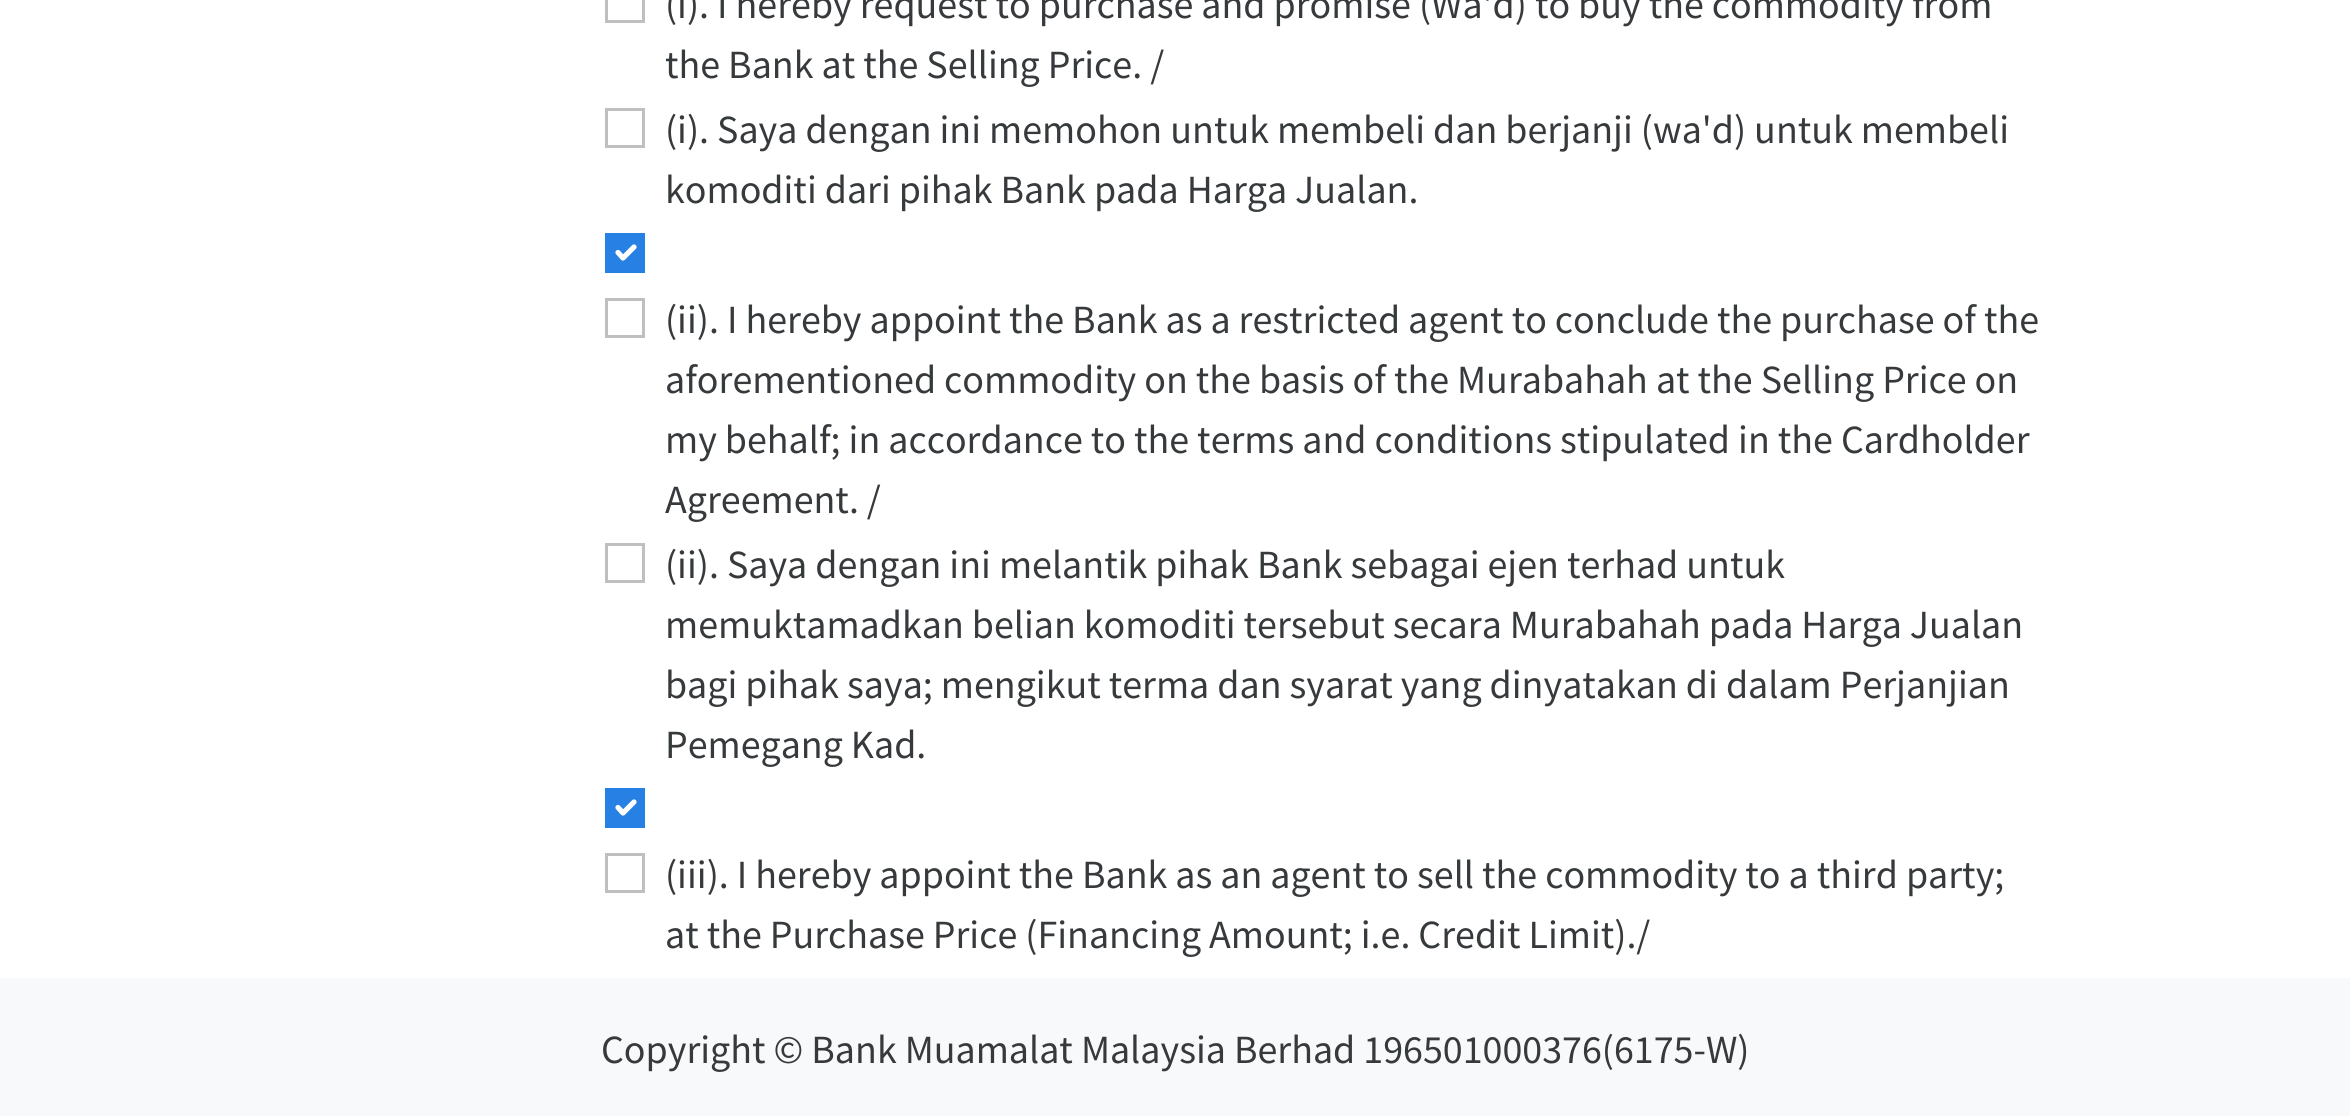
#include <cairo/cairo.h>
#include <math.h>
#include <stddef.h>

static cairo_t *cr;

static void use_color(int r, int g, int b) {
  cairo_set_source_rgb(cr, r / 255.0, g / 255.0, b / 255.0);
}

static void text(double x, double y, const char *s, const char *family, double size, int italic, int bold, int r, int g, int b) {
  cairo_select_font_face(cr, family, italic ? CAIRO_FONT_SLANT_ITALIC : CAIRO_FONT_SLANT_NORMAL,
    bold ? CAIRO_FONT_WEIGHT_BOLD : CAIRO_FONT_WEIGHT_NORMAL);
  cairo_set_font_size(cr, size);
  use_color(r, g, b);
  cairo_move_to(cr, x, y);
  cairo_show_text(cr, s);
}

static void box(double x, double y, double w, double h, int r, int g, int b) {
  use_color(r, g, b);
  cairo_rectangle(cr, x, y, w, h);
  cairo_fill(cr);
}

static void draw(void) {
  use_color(255, 255, 255);
  cairo_paint(cr);
  cairo_rectangle(cr, 606.5, -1.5, 37, 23);
  use_color(191, 191, 191);
  cairo_set_line_width(cr, 3);
  cairo_stroke(cr);
  cairo_rectangle(cr, 606.5, 109.5, 37, 37);
  cairo_stroke(cr);
  box(605, 233, 40, 40, 39, 128, 227);
  cairo_new_path(cr);
  cairo_move_to(cr, 618, 252.5);
  cairo_line_to(cr, 623, 258);
  cairo_line_to(cr, 634, 247);
  use_color(255, 255, 255);
  cairo_set_line_width(cr, 5.2);
  cairo_set_line_cap(cr, CAIRO_LINE_CAP_ROUND);
  cairo_set_line_join(cr, CAIRO_LINE_JOIN_ROUND);
  cairo_stroke(cr);
  cairo_rectangle(cr, 606.5, 299.5, 37, 37);
  use_color(191, 191, 191);
  cairo_set_line_width(cr, 3);
  cairo_set_line_cap(cr, CAIRO_LINE_CAP_BUTT);
  cairo_set_line_join(cr, CAIRO_LINE_JOIN_MITER);
  cairo_stroke(cr);
  cairo_rectangle(cr, 606.5, 544.5, 37, 37);
  cairo_stroke(cr);
  box(605, 788, 40, 40, 39, 128, 227);
  cairo_new_path(cr);
  cairo_move_to(cr, 618, 807.5);
  cairo_line_to(cr, 623, 813);
  cairo_line_to(cr, 634, 802);
  use_color(255, 255, 255);
  cairo_set_line_width(cr, 5.2);
  cairo_set_line_cap(cr, CAIRO_LINE_CAP_ROUND);
  cairo_set_line_join(cr, CAIRO_LINE_JOIN_ROUND);
  cairo_stroke(cr);
  cairo_rectangle(cr, 606.5, 854.5, 37, 37);
  use_color(191, 191, 191);
  cairo_set_line_width(cr, 3);
  cairo_set_line_cap(cr, CAIRO_LINE_CAP_BUTT);
  cairo_set_line_join(cr, CAIRO_LINE_JOIN_MITER);
  cairo_stroke(cr);
  box(0, 978, 2350, 138, 248, 249, 250);
  text(665, 18, "(i). I hereby request to purchase and promise (Wa'd) to buy the commodity from", "Source Sans Pro", 40, 0, 0, 55, 58, 60);
  text(665, 78, "the Bank at the Selling Price. /", "Source Sans Pro", 40, 0, 0, 55, 58, 60);
  text(665, 143, "(i). Saya dengan ini memohon untuk membeli dan berjanji (wa'd) untuk membeli", "Source Sans Pro", 40, 0, 0, 55, 58, 60);
  text(665, 203, "komoditi dari pihak Bank pada Harga Jualan.", "Source Sans Pro", 40, 0, 0, 55, 58, 60);
  text(665, 333, "(ii). I hereby appoint the Bank as a restricted agent to conclude the purchase of the", "Source Sans Pro", 40, 0, 0, 55, 58, 60);
  text(665, 393, "aforementioned commodity on the basis of the Murabahah at the Selling Price on", "Source Sans Pro", 40, 0, 0, 55, 58, 60);
  text(665, 453, "my behalf; in accordance to the terms and conditions stipulated in the Cardholder", "Source Sans Pro", 40, 0, 0, 55, 58, 60);
  text(665, 513, "Agreement. /", "Source Sans Pro", 40, 0, 0, 55, 58, 60);
  text(665, 578, "(ii). Saya dengan ini melantik pihak Bank sebagai ejen terhad untuk", "Source Sans Pro", 40, 0, 0, 55, 58, 60);
  text(665, 638, "memuktamadkan belian komoditi tersebut secara Murabahah pada Harga Jualan", "Source Sans Pro", 40, 0, 0, 55, 58, 60);
  text(665, 698, "bagi pihak saya; mengikut terma dan syarat yang dinyatakan di dalam Perjanjian", "Source Sans Pro", 40, 0, 0, 55, 58, 60);
  text(665, 758, "Pemegang Kad.", "Source Sans Pro", 40, 0, 0, 55, 58, 60);
  text(665, 888, "(iii). I hereby appoint the Bank as an agent to sell the commodity to a third party;", "Source Sans Pro", 40, 0, 0, 55, 58, 60);
  text(665, 948, "at the Purchase Price (Financing Amount; i.e. Credit Limit)./", "Source Sans Pro", 40, 0, 0, 55, 58, 60);
  text(601, 1063, "Copyright © Bank Muamalat Malaysia Berhad 196501000376(6175-W)", "Source Sans Pro", 40, 0, 0, 55, 58, 60);
}

int main(void) {
  cairo_surface_t *surface = cairo_image_surface_create(CAIRO_FORMAT_RGB24, 2350, 1116);
  cr = cairo_create(surface);
  cairo_font_options_t *options = cairo_font_options_create();
  cairo_font_options_set_hint_metrics(options, CAIRO_HINT_METRICS_OFF);
  cairo_font_options_set_hint_style(options, CAIRO_HINT_STYLE_NONE);
  cairo_set_font_options(cr, options);
  cairo_set_miter_limit(cr, 4);
  draw();
  cairo_surface_write_to_png(surface, "out.png");
  cairo_font_options_destroy(options);
  cairo_destroy(cr);
  cairo_surface_destroy(surface);
  return 0;
}
